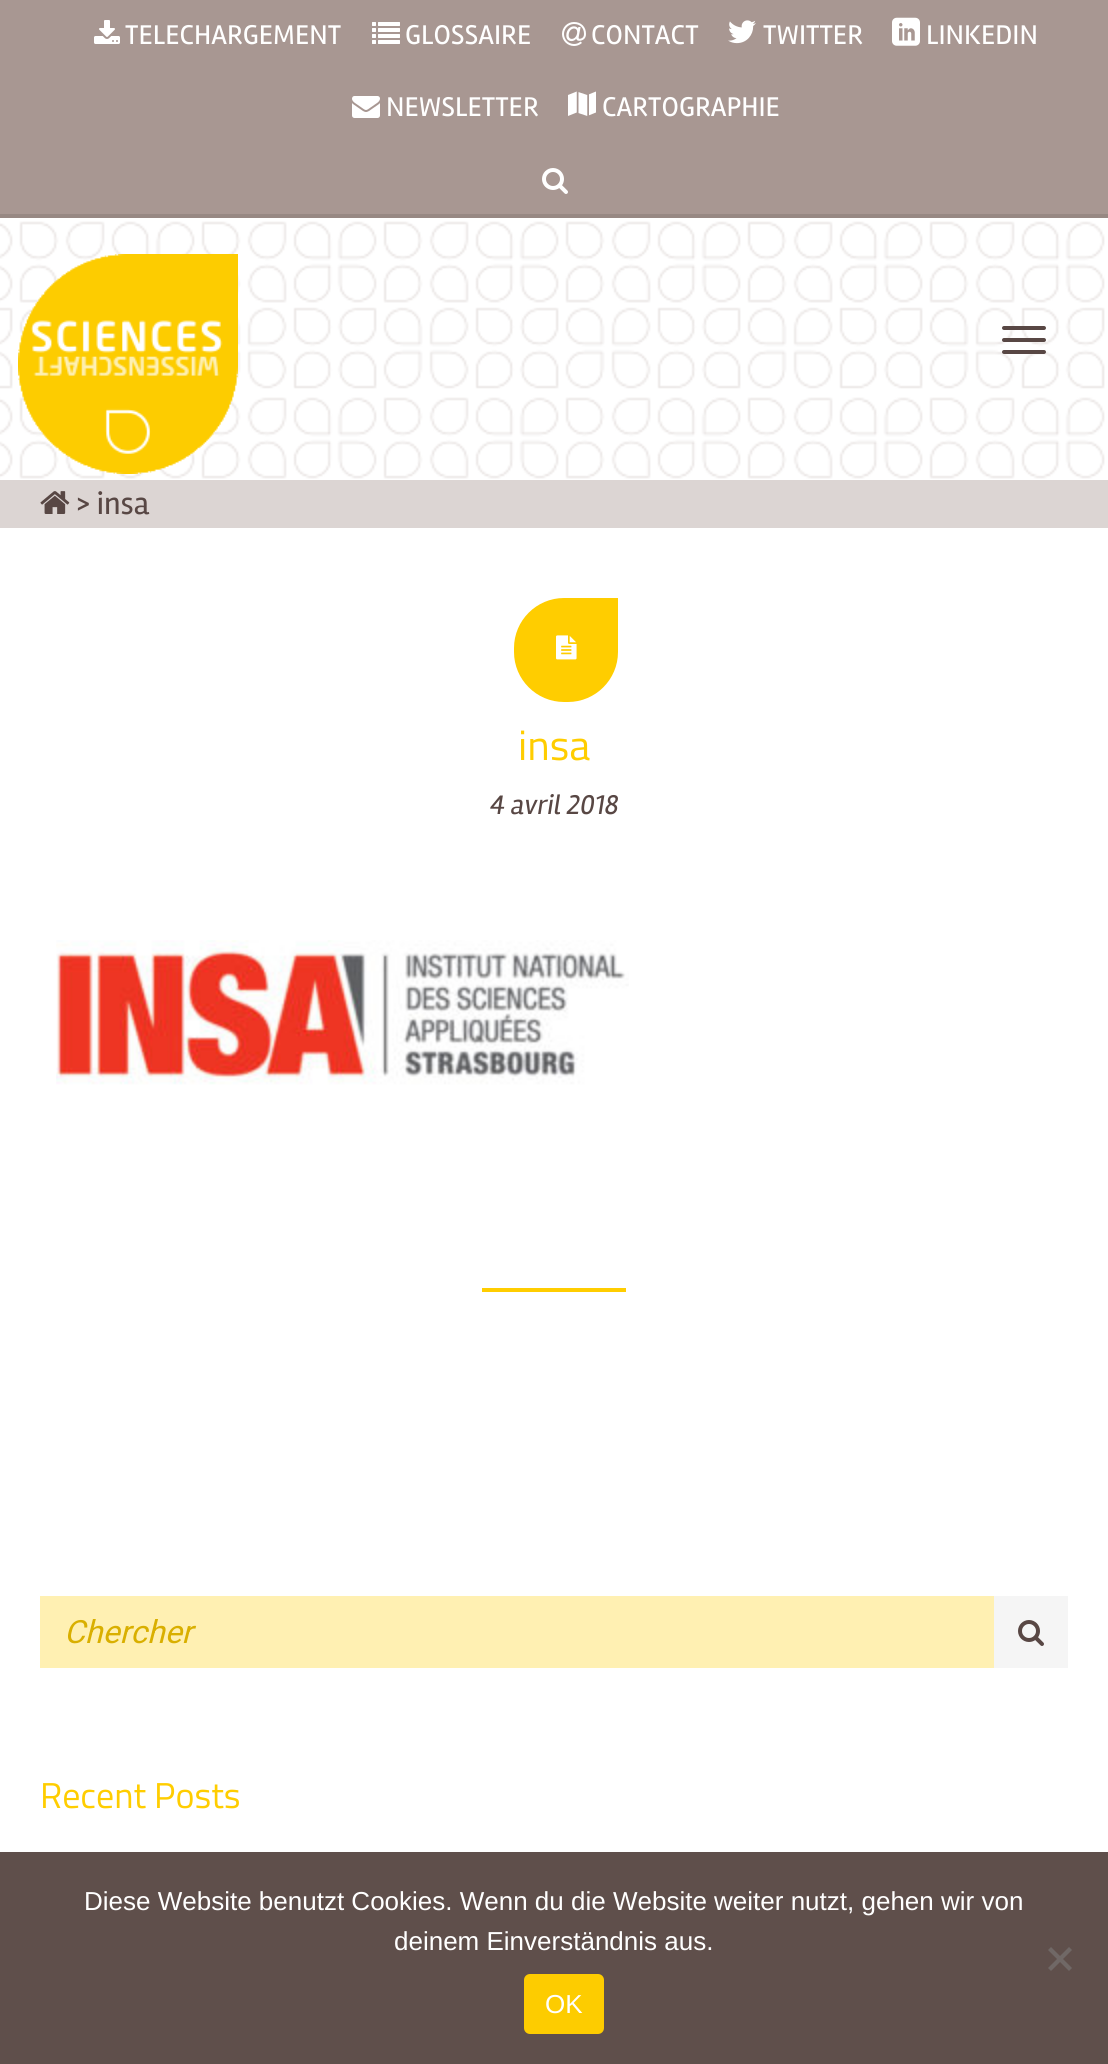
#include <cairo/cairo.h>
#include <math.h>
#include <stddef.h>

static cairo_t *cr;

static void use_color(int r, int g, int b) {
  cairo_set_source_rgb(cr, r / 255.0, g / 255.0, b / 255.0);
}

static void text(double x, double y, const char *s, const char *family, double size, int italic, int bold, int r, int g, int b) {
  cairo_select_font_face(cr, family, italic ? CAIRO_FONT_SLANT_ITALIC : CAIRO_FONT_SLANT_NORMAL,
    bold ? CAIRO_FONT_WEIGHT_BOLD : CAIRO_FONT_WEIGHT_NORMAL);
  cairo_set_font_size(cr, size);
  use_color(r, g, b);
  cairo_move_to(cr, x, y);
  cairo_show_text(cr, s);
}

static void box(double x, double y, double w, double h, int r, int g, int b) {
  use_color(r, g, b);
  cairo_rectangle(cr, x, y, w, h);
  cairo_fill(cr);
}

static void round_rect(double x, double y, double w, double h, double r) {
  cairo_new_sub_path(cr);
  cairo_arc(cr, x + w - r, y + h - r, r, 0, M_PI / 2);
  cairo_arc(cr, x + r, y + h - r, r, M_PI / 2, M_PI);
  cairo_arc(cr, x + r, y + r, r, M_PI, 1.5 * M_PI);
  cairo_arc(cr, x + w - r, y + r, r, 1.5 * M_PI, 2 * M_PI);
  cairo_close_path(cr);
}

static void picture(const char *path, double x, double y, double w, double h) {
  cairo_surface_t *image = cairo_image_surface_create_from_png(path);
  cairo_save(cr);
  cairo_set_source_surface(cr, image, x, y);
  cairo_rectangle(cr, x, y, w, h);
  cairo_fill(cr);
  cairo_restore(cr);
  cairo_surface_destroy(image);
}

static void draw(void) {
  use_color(255, 255, 255);
  cairo_paint(cr);
  box(0, 0, 1108, 214, 168, 151, 146);
  box(0, 214, 1108, 4, 151, 136, 131);
  picture("img_01.png", 94, 20, 26, 24);
  picture("img_02.png", 372, 22, 28, 22);
  picture("img_03.png", 562, 22, 24, 24);
  picture("img_04.png", 728, 20, 28, 24);
  picture("img_05.png", 892, 17, 28, 29);
  picture("img_06.png", 352, 96, 28, 22);
  picture("img_07.png", 568, 91, 28, 25);
  picture("img_08.png", 542, 168, 26, 26);
  picture("img_09.png", 0, 221, 1105, 258);
  picture("img_10.png", 18, 254, 220, 220);
  use_color(88, 71, 68);
  round_rect(1002, 326, 44, 4, 2);
  cairo_fill(cr);
  round_rect(1002, 338, 44, 4, 2);
  cairo_fill(cr);
  round_rect(1002, 350, 44, 4, 2);
  cairo_fill(cr);
  box(0, 480, 1108, 48, 220, 213, 211);
  picture("img_11.png", 40, 491, 30, 23);
  use_color(255, 205, 0);
  cairo_new_path(cr);
  cairo_move_to(cr, 564, 598);
  cairo_line_to(cr, 618, 598);
  cairo_line_to(cr, 618, 652);
  cairo_curve_to(cr, 618, 679.5, 595.5, 702, 568, 702);
  cairo_line_to(cr, 564, 702);
  cairo_curve_to(cr, 536.5, 702, 514, 679.5, 514, 652);
  cairo_line_to(cr, 514, 648);
  cairo_curve_to(cr, 514, 620.5, 536.5, 598, 564, 598);
  cairo_close_path(cr);
  cairo_fill(cr);
  picture("img_12.png", 556, 635, 21, 25);
  picture("img_13.png", 56, 940, 573, 145);
  box(482, 1288, 144, 4, 255, 205, 0);
  box(40, 1596, 954, 72, 255, 240, 178);
  box(994, 1596, 74, 72, 245, 245, 245);
  picture("img_14.png", 1018, 1620, 26, 26);
  box(0, 1852, 1108, 212, 95, 79, 75);
  use_color(112, 104, 102);
  cairo_new_path(cr);
  cairo_move_to(cr, 1069, 1947);
  cairo_line_to(cr, 1072, 1950);
  cairo_line_to(cr, 1051, 1971);
  cairo_line_to(cr, 1048, 1968);
  cairo_close_path(cr);
  cairo_fill(cr);
  cairo_new_path(cr);
  cairo_move_to(cr, 1048, 1950);
  cairo_line_to(cr, 1051, 1947);
  cairo_line_to(cr, 1072, 1968);
  cairo_line_to(cr, 1069, 1971);
  cairo_close_path(cr);
  cairo_fill(cr);
  use_color(253, 204, 0);
  round_rect(524, 1974, 80, 60, 6);
  cairo_fill(cr);
  text(125, 44, "TELECHARGEMENT", "Rambla", 28, 0, 0, 255, 255, 255);
  text(405, 44, "GLOSSAIRE", "Rambla", 28, 0, 0, 255, 255, 255);
  text(591, 44, "CONTACT", "Rambla", 28, 0, 0, 255, 255, 255);
  text(763, 44, "TWITTER", "Rambla", 28, 0, 0, 255, 255, 255);
  text(926, 44, "LINKEDIN", "Rambla", 28, 0, 0, 255, 255, 255);
  text(386, 116, "NEWSLETTER", "Rambla", 28, 0, 0, 255, 255, 255);
  text(602, 116, "CARTOGRAPHIE", "Rambla", 28, 0, 0, 255, 255, 255);
  text(76, 514, "> insa", "Rambla", 32, 0, 0, 88, 71, 68);
  text(518, 760, "insa", "Titillium Web", 42, 0, 0, 255, 205, 0);
  text(490, 814, "4 avril 2018", "Rambla", 28, 1, 0, 88, 71, 68);
  text(64, 1643, "Chercher", "Roboto", 32, 1, 0, 217, 175, 0);
  text(40, 1808, "Recent Posts", "Titillium Web", 36, 0, 0, 255, 205, 0);
  text(84, 1910, "Diese Website benutzt Cookies. Wenn du die Website weiter nutzt, gehen wir von", "Liberation Sans", 26, 0, 0, 255, 255, 255);
  text(394, 1950, "deinem Einverständnis aus.", "Liberation Sans", 26, 0, 0, 255, 255, 255);
  text(545, 2013, "OK", "Liberation Sans", 26, 0, 0, 255, 255, 255);
}

int main(void) {
  cairo_surface_t *surface = cairo_image_surface_create(CAIRO_FORMAT_RGB24, 1108, 2064);
  cr = cairo_create(surface);
  cairo_font_options_t *options = cairo_font_options_create();
  cairo_font_options_set_hint_metrics(options, CAIRO_HINT_METRICS_OFF);
  cairo_font_options_set_hint_style(options, CAIRO_HINT_STYLE_NONE);
  cairo_set_font_options(cr, options);
  cairo_set_miter_limit(cr, 4);
  draw();
  cairo_surface_write_to_png(surface, "out.png");
  cairo_font_options_destroy(options);
  cairo_destroy(cr);
  cairo_surface_destroy(surface);
  return 0;
}
